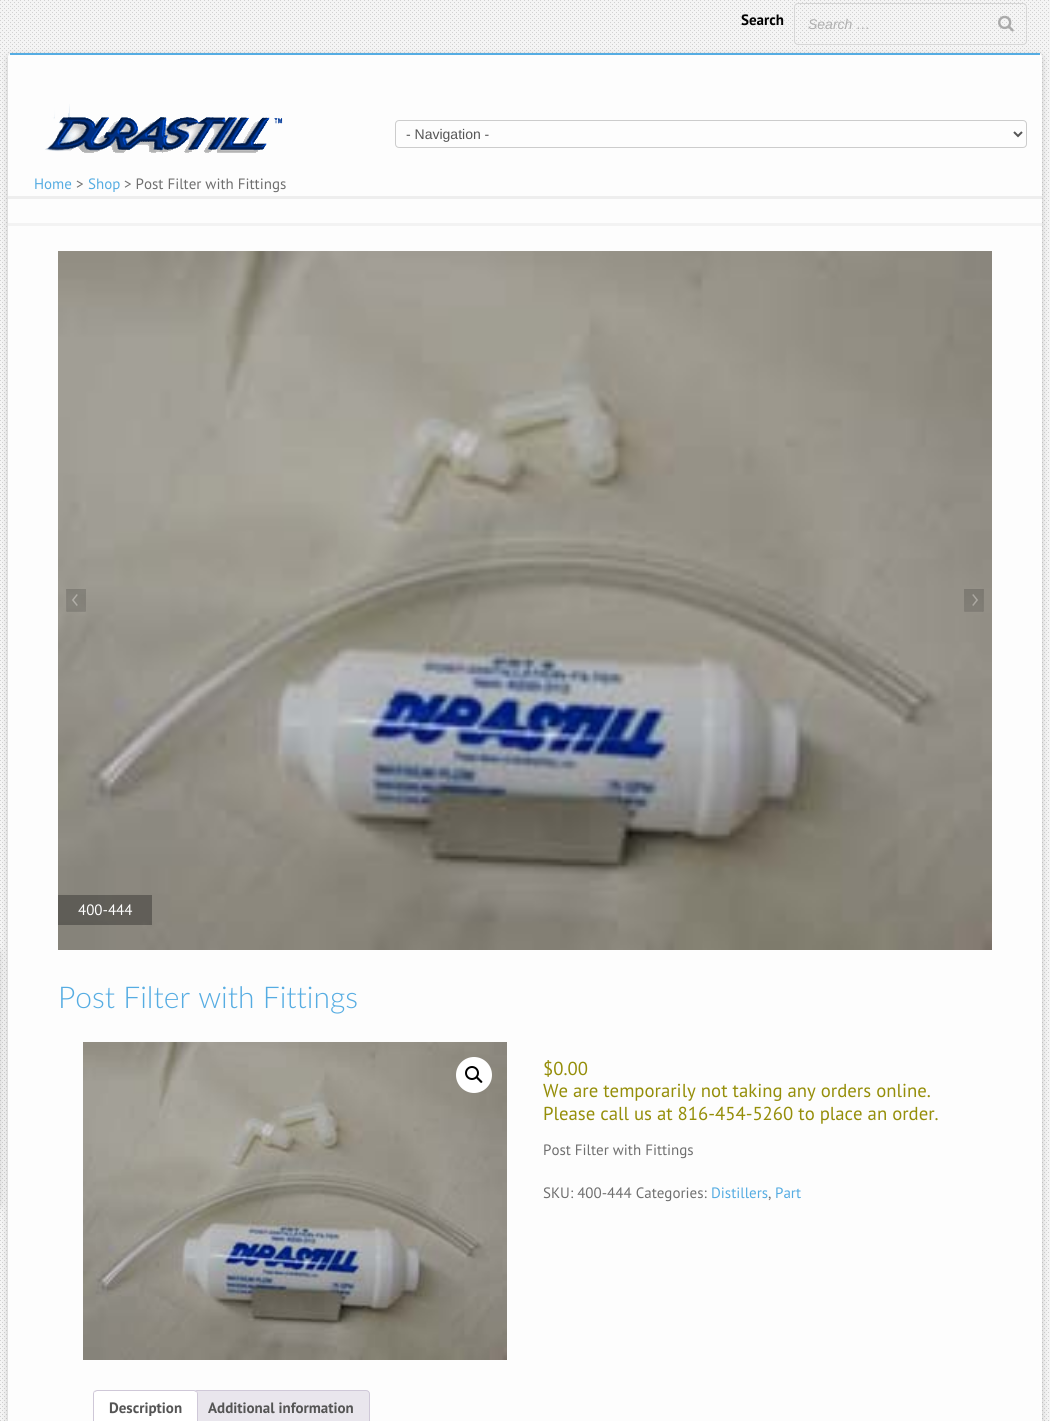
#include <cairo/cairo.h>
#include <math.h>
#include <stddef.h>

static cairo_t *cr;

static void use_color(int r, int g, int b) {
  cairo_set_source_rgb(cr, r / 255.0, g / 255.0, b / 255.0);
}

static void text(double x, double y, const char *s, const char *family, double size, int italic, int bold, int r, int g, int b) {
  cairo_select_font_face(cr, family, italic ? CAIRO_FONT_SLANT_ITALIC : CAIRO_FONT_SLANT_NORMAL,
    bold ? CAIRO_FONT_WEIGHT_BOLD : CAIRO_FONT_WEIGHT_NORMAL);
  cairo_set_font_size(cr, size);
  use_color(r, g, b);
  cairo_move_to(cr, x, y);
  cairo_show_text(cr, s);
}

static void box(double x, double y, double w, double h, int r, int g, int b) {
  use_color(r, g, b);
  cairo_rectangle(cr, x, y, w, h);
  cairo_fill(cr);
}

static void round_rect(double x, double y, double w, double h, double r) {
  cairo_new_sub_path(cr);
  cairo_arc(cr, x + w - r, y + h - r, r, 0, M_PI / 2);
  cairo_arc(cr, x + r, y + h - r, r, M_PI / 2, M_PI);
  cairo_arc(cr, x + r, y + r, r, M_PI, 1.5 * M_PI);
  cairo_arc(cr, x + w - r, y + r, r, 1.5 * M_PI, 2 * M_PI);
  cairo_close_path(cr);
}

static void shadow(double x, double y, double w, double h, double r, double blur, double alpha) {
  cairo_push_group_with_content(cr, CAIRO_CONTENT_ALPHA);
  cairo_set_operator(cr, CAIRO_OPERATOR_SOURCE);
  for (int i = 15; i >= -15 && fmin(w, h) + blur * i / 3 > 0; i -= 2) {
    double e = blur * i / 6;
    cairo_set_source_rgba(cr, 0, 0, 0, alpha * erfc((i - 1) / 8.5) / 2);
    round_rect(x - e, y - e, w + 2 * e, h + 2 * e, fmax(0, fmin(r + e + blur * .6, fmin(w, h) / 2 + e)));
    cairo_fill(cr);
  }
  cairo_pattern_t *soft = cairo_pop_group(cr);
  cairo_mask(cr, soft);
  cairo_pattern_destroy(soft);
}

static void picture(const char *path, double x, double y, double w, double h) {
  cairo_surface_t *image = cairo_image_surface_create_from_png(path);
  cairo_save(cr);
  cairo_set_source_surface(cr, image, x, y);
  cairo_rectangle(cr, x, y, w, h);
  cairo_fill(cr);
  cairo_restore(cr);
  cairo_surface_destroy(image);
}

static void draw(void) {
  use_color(255, 255, 255);
  cairo_paint(cr);
  picture("img_01.png", 0, 0, 1050, 1421);
  use_color(50, 50, 50);
  shadow(8, 55, 1034, 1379, 4, 3, 0.25);
  use_color(253, 253, 253);
  round_rect(8, 53, 1034, 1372, 4);
  cairo_fill(cr);
  use_color(50, 50, 50);
  shadow(-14, 949, 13, 260, 5, 3, 0.3);
  round_rect(794.5, 3.5, 232, 41, 3.5);
  use_color(214, 214, 214);
  cairo_set_line_width(cr, 1);
  cairo_stroke(cr);
  picture("img_02.png", 998, 15, 16, 17);
  box(10, 53, 1030, 2, 85, 172, 226);
  picture("img_03.png", 45, 104, 238, 49);
  round_rect(395.5, 120.5, 631, 27, 3.5);
  use_color(204, 204, 204);
  cairo_stroke(cr);
  cairo_new_path(cr);
  cairo_move_to(cr, 1014, 132);
  cairo_line_to(cr, 1018, 136);
  cairo_line_to(cr, 1022, 132);
  use_color(85, 85, 85);
  cairo_set_line_width(cr, 2);
  cairo_stroke(cr);
  box(8, 196, 1034, 3, 238, 238, 238);
  box(8, 223, 1034, 3, 243, 243, 243);
  picture("img_06.png", 58, 251, 934, 699);
  picture("img_04.png", 66, 589, 20, 23);
  picture("img_05.png", 964, 589, 20, 23);
  cairo_set_source_rgba(cr, 0, 0, 0, 0.3);
  cairo_rectangle(cr, 58, 895, 94, 30);
  cairo_fill(cr);
  picture("img_07.png", 83, 1042, 424, 318);
  use_color(255, 255, 255);
  cairo_arc(cr, 474, 1075, 18, 0, 2 * M_PI);
  cairo_fill(cr);
  cairo_arc(cr, 472, 1073, 6, 0, 2 * M_PI);
  use_color(0, 0, 0);
  cairo_stroke(cr);
  cairo_new_path(cr);
  cairo_move_to(cr, 476.5, 1077);
  cairo_curve_to(cr, 477.5, 1076, 479.5, 1078.5, 480, 1079);
  cairo_curve_to(cr, 480.5, 1080, 483.5, 1081.5, 482, 1082.5);
  cairo_curve_to(cr, 481, 1084, 479, 1081, 478.5, 1080.5);
  cairo_curve_to(cr, 478, 1080, 475.5, 1078.5, 476.5, 1077);
  cairo_close_path(cr);
  cairo_fill(cr);
  use_color(233, 230, 237);
  cairo_new_path(cr);
  cairo_move_to(cr, 196, 1390.5);
  cairo_line_to(cr, 366, 1390.5);
  cairo_curve_to(cr, 368, 1390.5, 369.5, 1392, 369.5, 1394);
  cairo_line_to(cr, 369.5, 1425.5);
  cairo_line_to(cr, 192.5, 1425.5);
  cairo_line_to(cr, 192.5, 1394);
  cairo_curve_to(cr, 192.5, 1392, 194, 1390.5, 196, 1390.5);
  cairo_close_path(cr);
  cairo_fill_preserve(cr);
  use_color(207, 200, 216);
  cairo_set_line_width(cr, 1);
  cairo_stroke(cr);
  use_color(255, 255, 255);
  cairo_new_path(cr);
  cairo_move_to(cr, 97, 1390);
  cairo_line_to(cr, 194, 1390);
  cairo_curve_to(cr, 196, 1390, 198, 1392, 198, 1394);
  cairo_line_to(cr, 198, 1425);
  cairo_line_to(cr, 93, 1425);
  cairo_line_to(cr, 93, 1394);
  cairo_curve_to(cr, 93, 1392, 95, 1390, 97, 1390);
  cairo_close_path(cr);
  cairo_fill(cr);
  use_color(207, 200, 216);
  cairo_new_path(cr);
  cairo_move_to(cr, 97, 1390);
  cairo_line_to(cr, 94, 1391);
  cairo_line_to(cr, 95, 1392);
  cairo_line_to(cr, 97, 1391);
  cairo_line_to(cr, 194, 1391);
  cairo_line_to(cr, 196, 1392);
  cairo_line_to(cr, 197, 1391);
  cairo_line_to(cr, 194, 1390);
  cairo_close_path(cr);
  cairo_fill(cr);
  cairo_new_path(cr);
  cairo_move_to(cr, 198, 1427);
  cairo_line_to(cr, 198, 1394);
  cairo_curve_to(cr, 198, 1393, 197.5, 1392, 197, 1391);
  cairo_line_to(cr, 196, 1392);
  cairo_curve_to(cr, 197, 1392, 197, 1393, 197, 1394);
  cairo_line_to(cr, 197, 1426);
  cairo_close_path(cr);
  cairo_fill(cr);
  cairo_new_path(cr);
  cairo_move_to(cr, 93, 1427);
  cairo_line_to(cr, 94, 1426);
  cairo_line_to(cr, 94, 1394);
  cairo_curve_to(cr, 94, 1393, 94, 1392, 95, 1392);
  cairo_line_to(cr, 94, 1391);
  cairo_curve_to(cr, 93.5, 1392, 93, 1393, 93, 1394);
  cairo_close_path(cr);
  cairo_fill(cr);
  text(741, 25, "Search", "PT Sans", 15, 0, 1, 0, 0, 0);
  text(808, 29, "Search …", "Liberation Sans", 14, 1, 0, 174, 174, 174);
  text(406, 139, "- Navigation -", "Liberation Sans", 14, 0, 0, 85, 85, 85);
  text(34, 189, "Home", "PT Sans", 15, 0, 0, 85, 172, 226);
  text(76, 189, ">", "PT Sans", 15, 0, 0, 111, 111, 111);
  text(88, 189, "Shop", "PT Sans", 15, 0, 0, 85, 172, 226);
  text(124, 189, "> Post Filter with Fittings", "PT Sans", 15, 0, 0, 111, 111, 111);
  text(78, 915, "400-444", "PT Sans", 15, 0, 0, 255, 255, 255);
  text(58, 1008, "Post Filter with Fittings", "Lato Light", 30, 0, 0, 85, 172, 226);
  text(543, 1075, "$0.00", "PT Sans", 18.75, 0, 0, 149, 142, 9);
  text(543, 1097, "We are temporarily not taking any orders online.", "PT Sans", 18.75, 0, 0, 149, 142, 9);
  text(543, 1120, "Please call us at 816-454-5260 to place an order.", "PT Sans", 18.75, 0, 0, 149, 142, 9);
  text(543, 1155, "Post Filter with Fittings", "PT Sans", 15, 0, 0, 111, 111, 111);
  text(543, 1198, "SKU: 400-444 Categories:", "PT Sans", 15, 0, 0, 111, 111, 111);
  text(711, 1198, "Distillers", "PT Sans", 15, 0, 0, 85, 172, 226);
  text(768, 1198, ",", "PT Sans", 15, 0, 0, 111, 111, 111);
  text(775, 1198, "Part", "PT Sans", 15, 0, 0, 85, 172, 226);
  text(109, 1413, "Description", "PT Sans", 15, 0, 1, 85, 85, 85);
  text(208, 1413, "Additional information", "PT Sans", 15, 0, 1, 85, 85, 85);
}

int main(void) {
  cairo_surface_t *surface = cairo_image_surface_create(CAIRO_FORMAT_RGB24, 1050, 1421);
  cr = cairo_create(surface);
  cairo_font_options_t *options = cairo_font_options_create();
  cairo_font_options_set_hint_metrics(options, CAIRO_HINT_METRICS_OFF);
  cairo_font_options_set_hint_style(options, CAIRO_HINT_STYLE_NONE);
  cairo_set_font_options(cr, options);
  cairo_set_miter_limit(cr, 4);
  draw();
  cairo_surface_write_to_png(surface, "out.png");
  cairo_font_options_destroy(options);
  cairo_destroy(cr);
  cairo_surface_destroy(surface);
  return 0;
}
